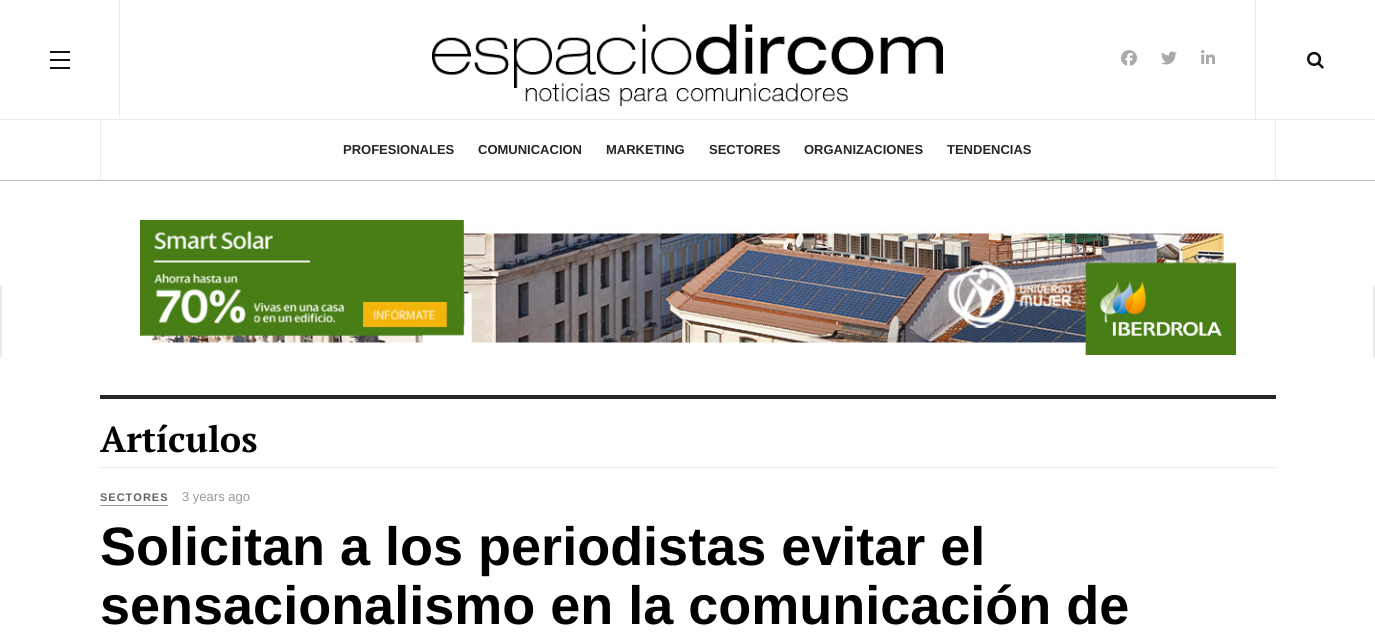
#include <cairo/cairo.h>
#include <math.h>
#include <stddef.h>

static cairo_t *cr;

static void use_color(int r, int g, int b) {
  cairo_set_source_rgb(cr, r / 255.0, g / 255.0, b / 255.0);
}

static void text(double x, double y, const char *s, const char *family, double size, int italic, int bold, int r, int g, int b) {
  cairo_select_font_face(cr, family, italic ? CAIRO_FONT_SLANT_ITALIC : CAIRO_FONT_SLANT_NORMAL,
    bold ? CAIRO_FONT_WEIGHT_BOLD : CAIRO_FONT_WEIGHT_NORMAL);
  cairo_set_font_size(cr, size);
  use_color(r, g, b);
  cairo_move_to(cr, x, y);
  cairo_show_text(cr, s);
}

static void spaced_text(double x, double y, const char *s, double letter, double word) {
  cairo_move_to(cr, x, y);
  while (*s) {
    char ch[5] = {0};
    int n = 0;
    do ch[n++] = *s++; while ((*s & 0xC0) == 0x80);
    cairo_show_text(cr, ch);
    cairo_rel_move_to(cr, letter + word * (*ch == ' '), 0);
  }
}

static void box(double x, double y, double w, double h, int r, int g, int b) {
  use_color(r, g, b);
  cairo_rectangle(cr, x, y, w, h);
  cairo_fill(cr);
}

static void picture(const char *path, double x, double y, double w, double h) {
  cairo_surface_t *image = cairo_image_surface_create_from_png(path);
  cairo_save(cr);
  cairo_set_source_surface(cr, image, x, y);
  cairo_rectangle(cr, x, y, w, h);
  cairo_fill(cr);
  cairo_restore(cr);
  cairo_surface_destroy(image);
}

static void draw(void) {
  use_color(255, 255, 255);
  cairo_paint(cr);
  box(0, 119, 1375, 1, 234, 234, 234);
  box(119, 0, 1, 118, 234, 234, 234);
  box(50, 59, 20, 2, 17, 17, 17);
  box(50, 51, 20, 2, 17, 17, 17);
  box(50, 67, 20, 2, 17, 17, 17);
  picture("img_01.png", 431, 24, 513, 83);
  picture("img_02.png", 1121, 50, 16, 16);
  picture("img_03.png", 1161, 51, 16, 14);
  picture("img_04.png", 1201, 50, 14, 14);
  box(1255, 0, 1, 119, 234, 234, 234);
  picture("img_05.png", 1307, 51, 17, 18);
  box(0, 180, 1375, 1, 185, 185, 185);
  box(1275, 120, 1, 60, 234, 234, 234);
  box(100, 120, 1, 60, 234, 234, 234);
  box(100, 395, 1176, 4, 38, 38, 38);
  picture("img_06.png", 140, 220, 1096, 135);
  box(100, 467, 1176, 1, 234, 234, 234);
  box(0, 285, 2, 72, 234, 234, 234);
  box(1373, 285, 2, 72, 234, 234, 234);
  box(100, 505, 68, 1, 153, 153, 153);
  text(343, 154, "PROFESIONALES", "Liberation Sans", 13, 0, 1, 38, 38, 38);
  text(478, 154, "COMUNICACION", "Liberation Sans", 13, 0, 1, 38, 38, 38);
  text(606, 154, "MARKETING", "Liberation Sans", 13, 0, 1, 38, 38, 38);
  text(709, 154, "SECTORES", "Liberation Sans", 13, 0, 1, 38, 38, 38);
  text(804, 154, "ORGANIZACIONES", "Liberation Sans", 13, 0, 1, 38, 38, 38);
  text(947, 154, "TENDENCIAS", "Liberation Sans", 13, 0, 1, 38, 38, 38);
  text(100, 452, "Artículos", "PT Serif", 36, 0, 1, 0, 0, 0);
  cairo_select_font_face(cr, "Liberation Sans", CAIRO_FONT_SLANT_NORMAL, CAIRO_FONT_WEIGHT_BOLD);
  cairo_set_font_size(cr, 11);
  use_color(98, 98, 98);
  spaced_text(100, 501, "SECTORES", 1, 0);
  text(182, 501, "3 years ago", "Liberation Sans", 13, 0, 0, 153, 153, 153);
  text(100, 565, "Solicitan a los periodistas evitar el", "Liberation Sans", 54, 0, 1, 0, 0, 0);
  text(100, 624, "sensacionalismo en la comunicación de", "Liberation Sans", 54, 0, 1, 0, 0, 0);
}

int main(void) {
  cairo_surface_t *surface = cairo_image_surface_create(CAIRO_FORMAT_RGB24, 1375, 633);
  cr = cairo_create(surface);
  cairo_font_options_t *options = cairo_font_options_create();
  cairo_font_options_set_hint_metrics(options, CAIRO_HINT_METRICS_OFF);
  cairo_font_options_set_hint_style(options, CAIRO_HINT_STYLE_NONE);
  cairo_set_font_options(cr, options);
  cairo_set_miter_limit(cr, 4);
  draw();
  cairo_surface_write_to_png(surface, "out.png");
  cairo_font_options_destroy(options);
  cairo_destroy(cr);
  cairo_surface_destroy(surface);
  return 0;
}
